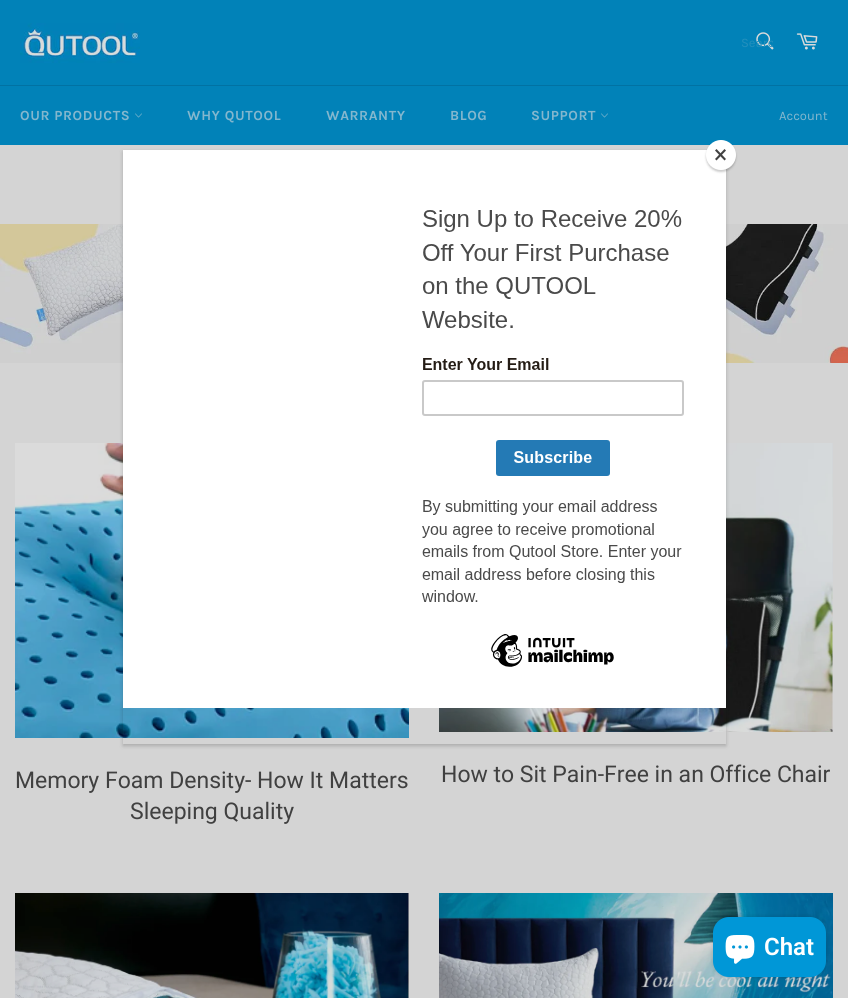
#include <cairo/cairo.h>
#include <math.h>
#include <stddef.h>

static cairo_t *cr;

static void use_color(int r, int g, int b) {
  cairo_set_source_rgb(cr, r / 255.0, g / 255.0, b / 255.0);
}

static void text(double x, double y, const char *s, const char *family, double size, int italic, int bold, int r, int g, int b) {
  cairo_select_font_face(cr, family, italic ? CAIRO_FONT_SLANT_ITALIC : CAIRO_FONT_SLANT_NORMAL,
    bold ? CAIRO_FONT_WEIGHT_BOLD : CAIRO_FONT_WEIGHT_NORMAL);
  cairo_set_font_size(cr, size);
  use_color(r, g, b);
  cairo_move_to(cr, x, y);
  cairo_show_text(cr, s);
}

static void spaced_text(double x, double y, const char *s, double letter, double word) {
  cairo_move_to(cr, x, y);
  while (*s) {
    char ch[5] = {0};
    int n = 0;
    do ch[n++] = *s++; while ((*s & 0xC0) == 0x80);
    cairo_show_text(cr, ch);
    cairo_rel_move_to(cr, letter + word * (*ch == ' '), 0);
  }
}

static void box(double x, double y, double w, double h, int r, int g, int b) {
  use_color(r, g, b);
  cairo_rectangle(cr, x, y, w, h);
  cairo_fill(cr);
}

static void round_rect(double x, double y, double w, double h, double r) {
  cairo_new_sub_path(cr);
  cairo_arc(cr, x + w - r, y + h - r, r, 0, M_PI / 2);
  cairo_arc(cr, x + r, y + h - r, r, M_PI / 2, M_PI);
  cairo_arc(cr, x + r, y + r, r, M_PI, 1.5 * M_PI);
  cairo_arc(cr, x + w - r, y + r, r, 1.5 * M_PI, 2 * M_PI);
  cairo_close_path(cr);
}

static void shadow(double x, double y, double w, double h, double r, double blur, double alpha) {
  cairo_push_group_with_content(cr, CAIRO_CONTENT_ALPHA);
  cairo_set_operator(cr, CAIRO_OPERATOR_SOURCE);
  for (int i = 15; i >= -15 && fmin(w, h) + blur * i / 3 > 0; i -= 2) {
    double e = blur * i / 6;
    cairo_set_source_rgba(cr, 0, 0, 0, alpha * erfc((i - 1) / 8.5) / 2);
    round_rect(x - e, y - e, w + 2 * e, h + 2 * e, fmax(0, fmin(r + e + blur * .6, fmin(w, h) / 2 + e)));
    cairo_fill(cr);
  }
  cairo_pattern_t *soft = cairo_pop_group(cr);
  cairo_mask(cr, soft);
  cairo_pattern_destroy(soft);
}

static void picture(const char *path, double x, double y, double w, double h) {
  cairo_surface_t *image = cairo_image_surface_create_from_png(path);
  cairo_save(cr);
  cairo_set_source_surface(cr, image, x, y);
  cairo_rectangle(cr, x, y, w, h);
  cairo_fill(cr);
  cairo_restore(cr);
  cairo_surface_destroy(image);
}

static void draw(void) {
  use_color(212, 212, 212);
  cairo_paint(cr);
  box(0, 0, 848, 85, 1, 130, 184);
  picture("img_01.png", 20, 23, 120, 40);
  picture("img_02.png", 756, 32, 18, 18);
  picture("img_03.png", 796, 33, 22, 17);
  box(0, 86, 848, 59, 1, 130, 184);
  box(0, 85, 848, 1, 1, 114, 163);
  picture("img_04.png", 135, 113, 7, 5);
  picture("img_04.png", 601, 113, 7, 5);
  picture("img_06.png", 0, 224, 848, 139);
  picture("img_07.png", 15, 443, 394, 295);
  picture("img_08.png", 439, 443, 394, 289);
  cairo_save(cr);
  cairo_set_fill_rule(cr, CAIRO_FILL_RULE_EVEN_ODD);
  cairo_new_path(cr);
  cairo_move_to(cr, 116, 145);
  cairo_line_to(cr, 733, 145);
  cairo_line_to(cr, 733, 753);
  cairo_line_to(cr, 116, 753);
  cairo_close_path(cr);
  cairo_move_to(cr, 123, 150);
  cairo_line_to(cr, 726, 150);
  cairo_line_to(cr, 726, 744);
  cairo_line_to(cr, 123, 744);
  cairo_close_path(cr);
  cairo_clip(cr);
  use_color(0, 0, 0);
  shadow(123, 152, 603, 594, 0, 2, 0.2);
  cairo_restore(cr);
  picture("img_05.png", 123, 150, 603, 558);
  use_color(0, 0, 0);
  shadow(706, 142, 30, 30, 15, 1, 0.2);
  use_color(255, 255, 255);
  cairo_arc(cr, 721, 155, 15, 0, 2 * M_PI);
  cairo_fill(cr);
  use_color(65, 65, 65);
  cairo_new_path(cr);
  cairo_move_to(cr, 724.5, 149);
  cairo_line_to(cr, 726, 150.5);
  cairo_line_to(cr, 716.5, 160.5);
  cairo_line_to(cr, 715, 159);
  cairo_close_path(cr);
  cairo_fill(cr);
  cairo_new_path(cr);
  cairo_move_to(cr, 715, 150.5);
  cairo_line_to(cr, 716.5, 149);
  cairo_line_to(cr, 726, 159);
  cairo_line_to(cr, 724.5, 160.5);
  cairo_close_path(cr);
  cairo_fill(cr);
  picture("img_09.png", 15, 893, 394, 105);
  picture("img_10.png", 439, 893, 394, 105);
  use_color(0, 0, 0);
  shadow(713, 917, 113, 60, 16, 2.5, 0.15);
  use_color(0, 151, 215);
  round_rect(713, 917, 113, 60, 16);
  cairo_fill(cr);
  picture("img_11.png", 725, 935, 30, 29);
  cairo_save(cr);
  cairo_rectangle(cr, 741, 35, 32, 15);
  cairo_clip(cr);
  text(741, 47, "Searc", "Karla", 13, 0, 0, 35, 144, 189);
  cairo_restore(cr);
  cairo_select_font_face(cr, "Karla", CAIRO_FONT_SLANT_NORMAL, CAIRO_FONT_WEIGHT_BOLD);
  cairo_set_font_size(cr, 14);
  use_color(132, 183, 206);
  spaced_text(20, 120, "OUR PRODUCTS", 0.6, 0);
  spaced_text(187, 120, "WHY QUTOOL", 0.6, 0);
  spaced_text(326, 120, "WARRANTY", 0.6, 0);
  spaced_text(450, 120, "BLOG", 0.6, 0);
  spaced_text(531, 120, "SUPPORT", 0.6, 0);
  text(779, 120, "Account", "Karla", 13, 0, 0, 132, 183, 206);
  text(15, 788, "Memory Foam Density- How It Matters", "Roboto", 23, 0, 0, 64, 64, 64);
  text(130, 819, "Sleeping Quality", "Roboto", 23, 0, 0, 64, 64, 64);
  text(441, 782, "How to Sit Pain-Free in an Office Chair", "Roboto", 23, 0, 0, 64, 64, 64);
  text(764, 955, "Chat", "Roboto SemiBold", 24, 0, 0, 255, 255, 255);
}

int main(void) {
  cairo_surface_t *surface = cairo_image_surface_create(CAIRO_FORMAT_RGB24, 848, 998);
  cr = cairo_create(surface);
  cairo_font_options_t *options = cairo_font_options_create();
  cairo_font_options_set_hint_metrics(options, CAIRO_HINT_METRICS_OFF);
  cairo_font_options_set_hint_style(options, CAIRO_HINT_STYLE_NONE);
  cairo_set_font_options(cr, options);
  cairo_set_miter_limit(cr, 4);
  draw();
  cairo_surface_write_to_png(surface, "out.png");
  cairo_font_options_destroy(options);
  cairo_destroy(cr);
  cairo_surface_destroy(surface);
  return 0;
}
